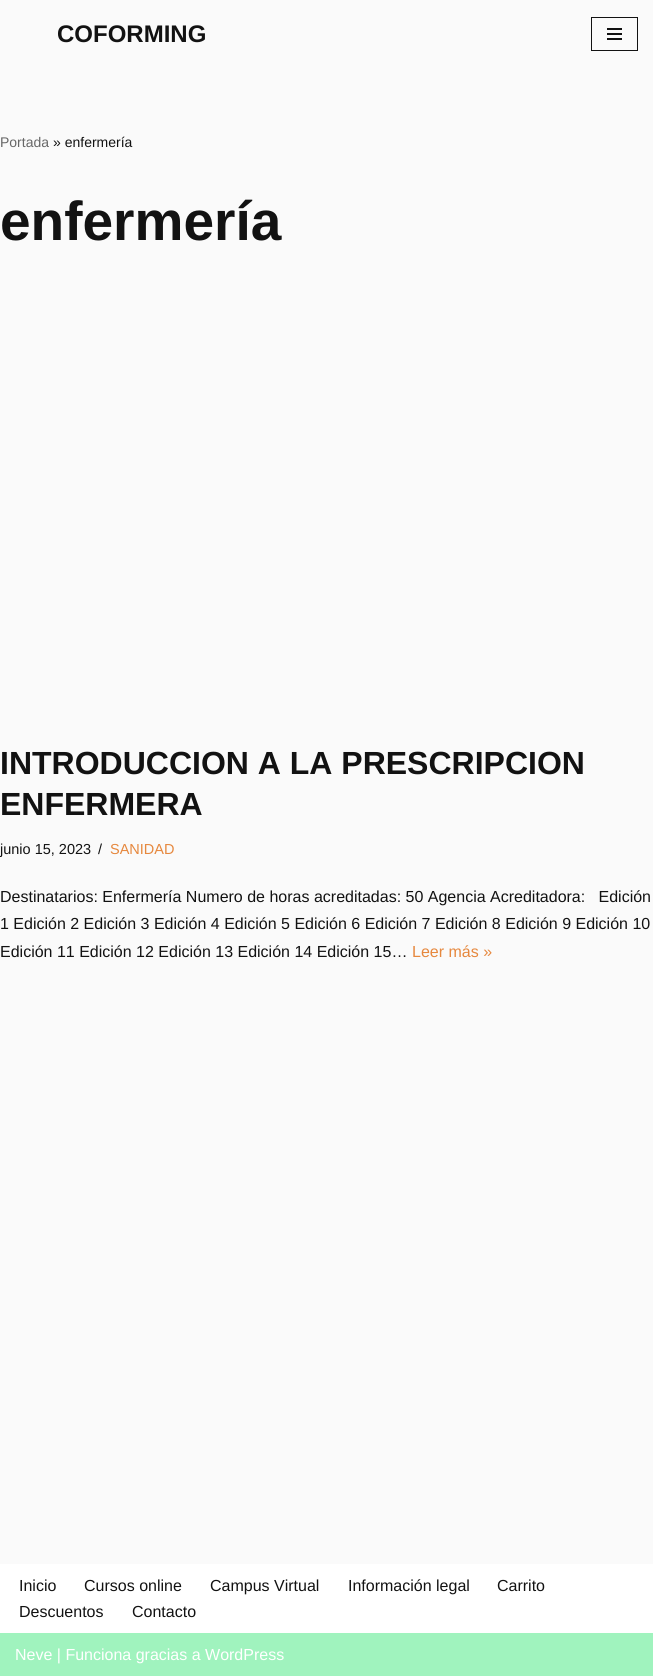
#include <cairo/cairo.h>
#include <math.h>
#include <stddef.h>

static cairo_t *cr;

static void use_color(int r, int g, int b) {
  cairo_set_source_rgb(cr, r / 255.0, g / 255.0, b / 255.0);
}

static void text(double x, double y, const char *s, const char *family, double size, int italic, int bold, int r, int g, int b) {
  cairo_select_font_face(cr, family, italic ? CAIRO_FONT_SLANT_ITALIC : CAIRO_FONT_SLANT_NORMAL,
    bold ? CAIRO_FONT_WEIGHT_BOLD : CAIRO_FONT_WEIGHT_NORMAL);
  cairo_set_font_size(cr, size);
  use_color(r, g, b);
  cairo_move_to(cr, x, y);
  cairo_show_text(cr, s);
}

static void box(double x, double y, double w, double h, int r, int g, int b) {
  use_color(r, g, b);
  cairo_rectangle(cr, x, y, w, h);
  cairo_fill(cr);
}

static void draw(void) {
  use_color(250, 250, 250);
  cairo_paint(cr);
  cairo_rectangle(cr, 591.5, 17.5, 46, 33);
  use_color(18, 18, 18);
  cairo_set_line_width(cr, 1);
  cairo_stroke(cr);
  box(607, 28, 15, 2, 18, 18, 18);
  box(607, 33, 15, 2, 18, 18, 18);
  box(607, 38, 15, 2, 18, 18, 18);
  box(0, 1564, 653, 69, 255, 255, 255);
  box(0, 1633, 653, 43, 160, 243, 190);
  text(57, 42, "COFORMING", "Liberation Sans", 24, 0, 1, 18, 18, 18);
  text(0, 147, "Portada", "Liberation Sans", 14, 0, 0, 103, 103, 103);
  text(53, 147, "» enfermería", "Liberation Sans", 14, 0, 0, 18, 18, 18);
  text(0, 240, "enfermería", "Liberation Sans", 55, 0, 1, 18, 18, 18);
  text(0, 774, "INTRODUCCION A LA PRESCRIPCION", "Liberation Sans", 32, 0, 1, 18, 18, 18);
  text(0, 815, "ENFERMERA", "Liberation Sans", 32, 0, 1, 18, 18, 18);
  text(0, 854, "junio 15, 2023", "Liberation Sans", 14.5, 0, 0, 18, 18, 18);
  text(98, 854, "/", "Liberation Sans", 14.5, 0, 0, 18, 18, 18);
  text(110, 854, "SANIDAD", "Liberation Sans", 14.5, 0, 0, 230, 136, 62);
  text(0, 902, "Destinatarios: Enfermería Numero de horas acreditadas: 50 Agencia Acreditadora:   Edición", "Liberation Sans", 16, 0, 0, 18, 18, 18);
  text(0, 929, "1 Edición 2 Edición 3 Edición 4 Edición 5 Edición 6 Edición 7 Edición 8 Edición 9 Edición 10", "Liberation Sans", 16, 0, 0, 18, 18, 18);
  text(0, 957, "Edición 11 Edición 12 Edición 13 Edición 14 Edición 15…", "Liberation Sans", 16, 0, 0, 18, 18, 18);
  text(412, 957, "Leer más »", "Liberation Sans", 16, 0, 0, 230, 136, 62);
  text(19, 1591, "Inicio", "Liberation Sans", 16, 0, 0, 18, 18, 18);
  text(84, 1591, "Cursos online", "Liberation Sans", 16, 0, 0, 18, 18, 18);
  text(210, 1591, "Campus Virtual", "Liberation Sans", 16, 0, 0, 18, 18, 18);
  text(348, 1591, "Información legal", "Liberation Sans", 16, 0, 0, 18, 18, 18);
  text(497, 1591, "Carrito", "Liberation Sans", 16, 0, 0, 18, 18, 18);
  text(19, 1617, "Descuentos", "Liberation Sans", 16, 0, 0, 18, 18, 18);
  text(132, 1617, "Contacto", "Liberation Sans", 16, 0, 0, 18, 18, 18);
  text(15, 1660, "Neve | Funciona gracias a WordPress", "Liberation Sans", 16, 0, 0, 255, 255, 255);
}

int main(void) {
  cairo_surface_t *surface = cairo_image_surface_create(CAIRO_FORMAT_RGB24, 653, 1676);
  cr = cairo_create(surface);
  cairo_font_options_t *options = cairo_font_options_create();
  cairo_font_options_set_hint_metrics(options, CAIRO_HINT_METRICS_OFF);
  cairo_font_options_set_hint_style(options, CAIRO_HINT_STYLE_NONE);
  cairo_set_font_options(cr, options);
  cairo_set_miter_limit(cr, 4);
  draw();
  cairo_surface_write_to_png(surface, "out.png");
  cairo_font_options_destroy(options);
  cairo_destroy(cr);
  cairo_surface_destroy(surface);
  return 0;
}
